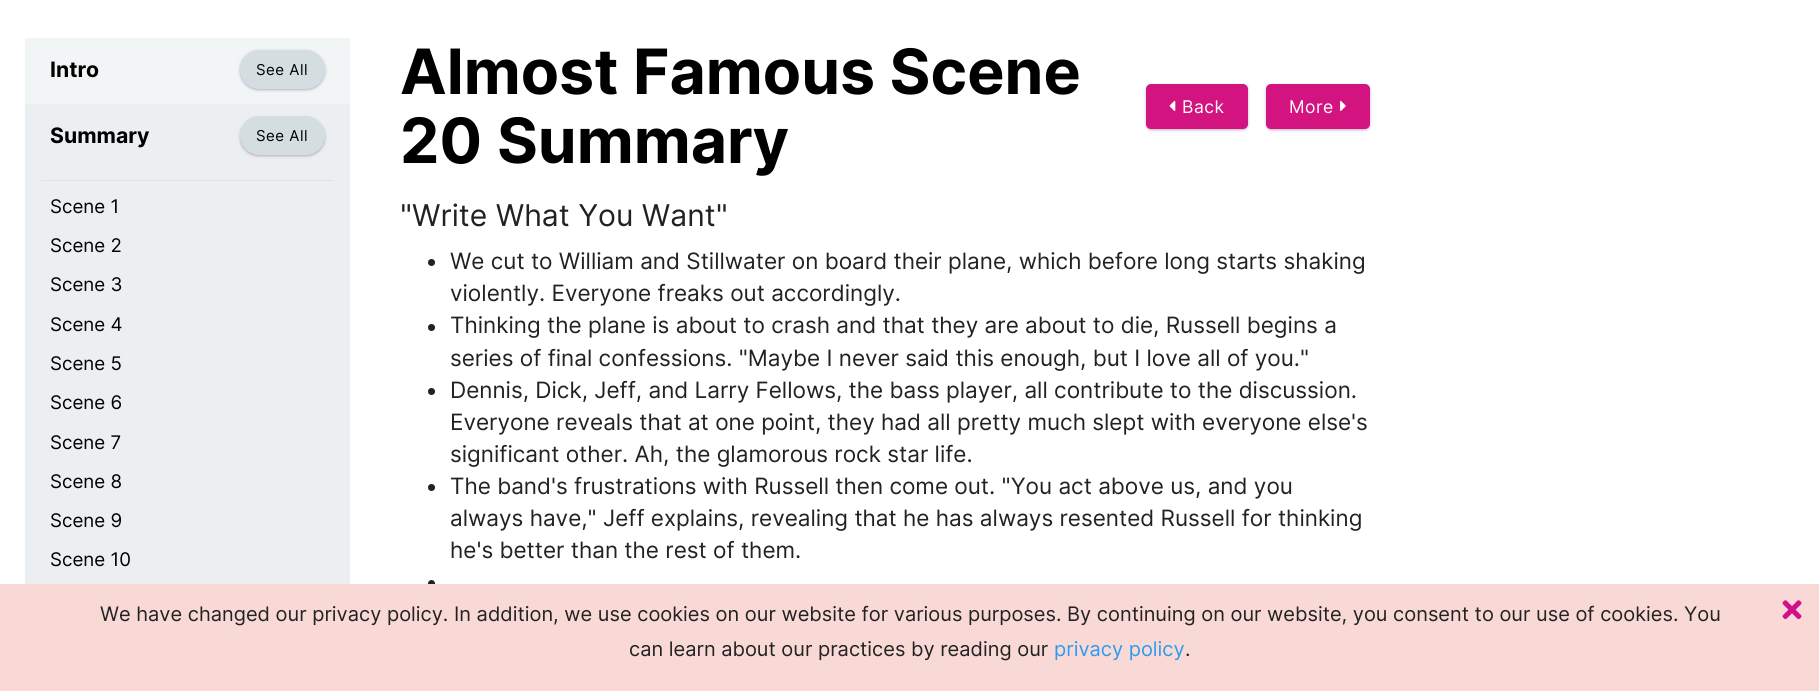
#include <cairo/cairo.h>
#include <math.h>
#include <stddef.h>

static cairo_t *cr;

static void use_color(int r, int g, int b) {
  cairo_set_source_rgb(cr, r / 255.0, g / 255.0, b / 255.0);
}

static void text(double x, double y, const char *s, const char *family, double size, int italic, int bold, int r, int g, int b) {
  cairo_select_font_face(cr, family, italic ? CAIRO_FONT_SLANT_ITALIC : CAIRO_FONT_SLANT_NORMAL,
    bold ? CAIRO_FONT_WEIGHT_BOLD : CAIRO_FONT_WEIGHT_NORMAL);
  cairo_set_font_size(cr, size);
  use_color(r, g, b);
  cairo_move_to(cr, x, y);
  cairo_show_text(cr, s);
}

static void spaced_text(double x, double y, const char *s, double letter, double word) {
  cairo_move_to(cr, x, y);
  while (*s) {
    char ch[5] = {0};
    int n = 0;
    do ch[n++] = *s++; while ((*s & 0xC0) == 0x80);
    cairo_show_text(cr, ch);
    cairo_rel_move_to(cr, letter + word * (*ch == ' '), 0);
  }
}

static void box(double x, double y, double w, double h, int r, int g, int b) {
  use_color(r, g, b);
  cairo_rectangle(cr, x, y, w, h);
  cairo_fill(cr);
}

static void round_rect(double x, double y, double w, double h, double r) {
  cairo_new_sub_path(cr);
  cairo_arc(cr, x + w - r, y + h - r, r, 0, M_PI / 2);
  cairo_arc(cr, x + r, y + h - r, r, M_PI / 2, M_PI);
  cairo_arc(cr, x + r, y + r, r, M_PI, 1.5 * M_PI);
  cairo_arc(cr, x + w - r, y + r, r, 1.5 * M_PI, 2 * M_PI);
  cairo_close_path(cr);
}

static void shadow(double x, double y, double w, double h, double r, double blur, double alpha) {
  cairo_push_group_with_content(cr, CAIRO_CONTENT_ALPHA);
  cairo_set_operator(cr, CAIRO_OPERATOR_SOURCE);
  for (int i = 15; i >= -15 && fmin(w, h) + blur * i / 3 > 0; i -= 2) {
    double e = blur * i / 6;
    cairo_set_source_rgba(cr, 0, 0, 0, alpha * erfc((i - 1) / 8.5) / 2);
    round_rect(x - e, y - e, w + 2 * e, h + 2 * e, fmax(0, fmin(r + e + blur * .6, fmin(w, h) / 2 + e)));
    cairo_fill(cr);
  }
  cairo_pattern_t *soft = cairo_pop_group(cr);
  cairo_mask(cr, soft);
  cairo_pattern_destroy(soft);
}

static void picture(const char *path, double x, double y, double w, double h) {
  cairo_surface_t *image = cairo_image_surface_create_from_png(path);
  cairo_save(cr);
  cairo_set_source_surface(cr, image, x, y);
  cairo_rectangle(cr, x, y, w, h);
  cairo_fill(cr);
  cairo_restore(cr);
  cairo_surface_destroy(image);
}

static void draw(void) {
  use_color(255, 255, 255);
  cairo_paint(cr);
  box(25, 38, 325, 66, 242, 245, 246);
  use_color(44, 143, 175);
  shadow(240, 51, 85, 39, 19.5, 2, 0.2);
  use_color(184, 46, 124);
  shadow(240, 51, 85, 39, 19.5, 1, 0.3);
  use_color(212, 222, 225);
  round_rect(240.5, 50.5, 84, 38, 19);
  cairo_fill_preserve(cr);
  cairo_set_line_width(cr, 1);
  cairo_stroke(cr);
  box(25, 104, 325, 480, 236, 239, 241);
  use_color(44, 143, 175);
  shadow(240, 118, 85, 38, 19, 2, 0.2);
  use_color(184, 46, 124);
  shadow(240, 118, 85, 38, 19, 1, 0.3);
  use_color(212, 222, 225);
  round_rect(240.5, 116.5, 84, 38, 19);
  cairo_fill_preserve(cr);
  cairo_stroke(cr);
  box(41, 180, 293, 1, 220, 228, 232);
  use_color(44, 143, 175);
  shadow(1146, 85, 102, 45, 5, 2, 0.2);
  use_color(184, 46, 124);
  shadow(1146, 85, 102, 45, 5, 1, 0.3);
  use_color(211, 19, 127);
  round_rect(1146, 84, 102, 45, 5);
  cairo_fill(cr);
  picture("img_01.png", 1169, 100, 7, 11);
  use_color(44, 143, 175);
  shadow(1266, 85, 104, 45, 5, 2, 0.2);
  use_color(184, 46, 124);
  shadow(1266, 85, 104, 45, 5, 1, 0.3);
  use_color(211, 19, 127);
  round_rect(1266, 84, 104, 45, 5);
  cairo_fill(cr);
  picture("img_02.png", 1340, 100, 6, 11);
  use_color(34, 34, 34);
  cairo_arc(cr, 431.5, 262.5, 3.5, 0, 2 * M_PI);
  cairo_fill(cr);
  cairo_arc(cr, 431.5, 327.5, 3.5, 0, 2 * M_PI);
  cairo_fill(cr);
  cairo_arc(cr, 431.5, 391.5, 3.5, 0, 2 * M_PI);
  cairo_fill(cr);
  cairo_arc(cr, 431.5, 487.5, 3.5, 0, 2 * M_PI);
  cairo_fill(cr);
  round_rect(428, 580, 7, 8, 3.5);
  cairo_fill(cr);
  box(0, 584, 1819, 107, 249, 217, 214);
  picture("img_03.png", 1782, 600, 20, 20);
  text(50, 77, "Intro", "Inter", 21.25, 0, 1, 0, 0, 0);
  cairo_select_font_face(cr, "Inter", CAIRO_FONT_SLANT_NORMAL, CAIRO_FONT_WEIGHT_NORMAL);
  cairo_set_font_size(cr, 15);
  spaced_text(256, 75, "See All", 0.5, 0);
  text(50, 143, "Summary", "Inter", 21.25, 0, 1, 0, 0, 0);
  cairo_select_font_face(cr, "Inter", CAIRO_FONT_SLANT_NORMAL, CAIRO_FONT_WEIGHT_NORMAL);
  cairo_set_font_size(cr, 15);
  spaced_text(256, 141, "See All", 0.5, 0);
  text(50, 213, "Scene 1", "Inter", 18.75, 0, 0, 0, 0, 0);
  text(50, 252, "Scene 2", "Inter", 18.75, 0, 0, 0, 0, 0);
  text(50, 291, "Scene 3", "Inter", 18.75, 0, 0, 0, 0, 0);
  text(50, 331, "Scene 4", "Inter", 18.75, 0, 0, 0, 0, 0);
  text(50, 370, "Scene 5", "Inter", 18.75, 0, 0, 0, 0, 0);
  text(50, 409, "Scene 6", "Inter", 18.75, 0, 0, 0, 0, 0);
  text(50, 449, "Scene 7", "Inter", 18.75, 0, 0, 0, 0, 0);
  text(50, 488, "Scene 8", "Inter", 18.75, 0, 0, 0, 0, 0);
  text(50, 527, "Scene 9", "Inter", 18.75, 0, 0, 0, 0, 0);
  text(50, 566, "Scene 10", "Inter", 18.75, 0, 0, 0, 0, 0);
  text(400, 94, "Almost Famous Scene", "Inter", 62.5, 0, 1, 0, 0, 0);
  text(400, 163, "20 Summary", "Inter", 62.5, 0, 1, 0, 0, 0);
  cairo_select_font_face(cr, "Inter", CAIRO_FONT_SLANT_NORMAL, CAIRO_FONT_WEIGHT_NORMAL);
  cairo_set_font_size(cr, 17.5);
  use_color(255, 255, 255);
  spaced_text(1182, 113, "Back", 0.5, 0);
  spaced_text(1289, 113, "More", 0.5, 0);
  text(400, 226, "\"Write What You Want\"", "Inter", 30, 0, 0, 34, 34, 34);
  text(450, 269, "We cut to William and Stillwater on board their plane, which before long starts shaking", "Inter", 22.5, 0, 0, 34, 34, 34);
  text(450, 301, "violently. Everyone freaks out accordingly.", "Inter", 22.5, 0, 0, 34, 34, 34);
  text(450, 333, "Thinking the plane is about to crash and that they are about to die, Russell begins a", "Inter", 22.5, 0, 0, 34, 34, 34);
  text(450, 366, "series of final confessions. \"Maybe I never said this enough, but I love all of you.\"", "Inter", 22.5, 0, 0, 34, 34, 34);
  text(450, 398, "Dennis, Dick, Jeff, and Larry Fellows, the bass player, all contribute to the discussion.", "Inter", 22.5, 0, 0, 34, 34, 34);
  text(450, 430, "Everyone reveals that at one point, they had all pretty much slept with everyone else's", "Inter", 22.5, 0, 0, 34, 34, 34);
  text(450, 462, "significant other. Ah, the glamorous rock star life.", "Inter", 22.5, 0, 0, 34, 34, 34);
  text(450, 494, "The band's frustrations with Russell then come out. \"You act above us, and you", "Inter", 22.5, 0, 0, 34, 34, 34);
  text(450, 526, "always have,\" Jeff explains, revealing that he has always resented Russell for thinking", "Inter", 22.5, 0, 0, 34, 34, 34);
  text(450, 558, "he's better than the rest of them.", "Inter", 22.5, 0, 0, 34, 34, 34);
  text(100, 621, "We have changed our privacy policy. In addition, we use cookies on our website for various purposes. By continuing on our website, you consent to our use of cookies. You", "Inter", 20, 0, 0, 34, 34, 34);
  text(629, 656, "can learn about our practices by reading our", "Inter", 20, 0, 0, 34, 34, 34);
  text(1054, 656, "privacy policy", "Inter", 20, 0, 0, 46, 155, 238);
  text(1185, 656, ".", "Inter", 20, 0, 0, 34, 34, 34);
}

int main(void) {
  cairo_surface_t *surface = cairo_image_surface_create(CAIRO_FORMAT_RGB24, 1819, 691);
  cr = cairo_create(surface);
  cairo_font_options_t *options = cairo_font_options_create();
  cairo_font_options_set_hint_metrics(options, CAIRO_HINT_METRICS_OFF);
  cairo_font_options_set_hint_style(options, CAIRO_HINT_STYLE_NONE);
  cairo_set_font_options(cr, options);
  cairo_set_miter_limit(cr, 4);
  draw();
  cairo_surface_write_to_png(surface, "out.png");
  cairo_font_options_destroy(options);
  cairo_destroy(cr);
  cairo_surface_destroy(surface);
  return 0;
}
